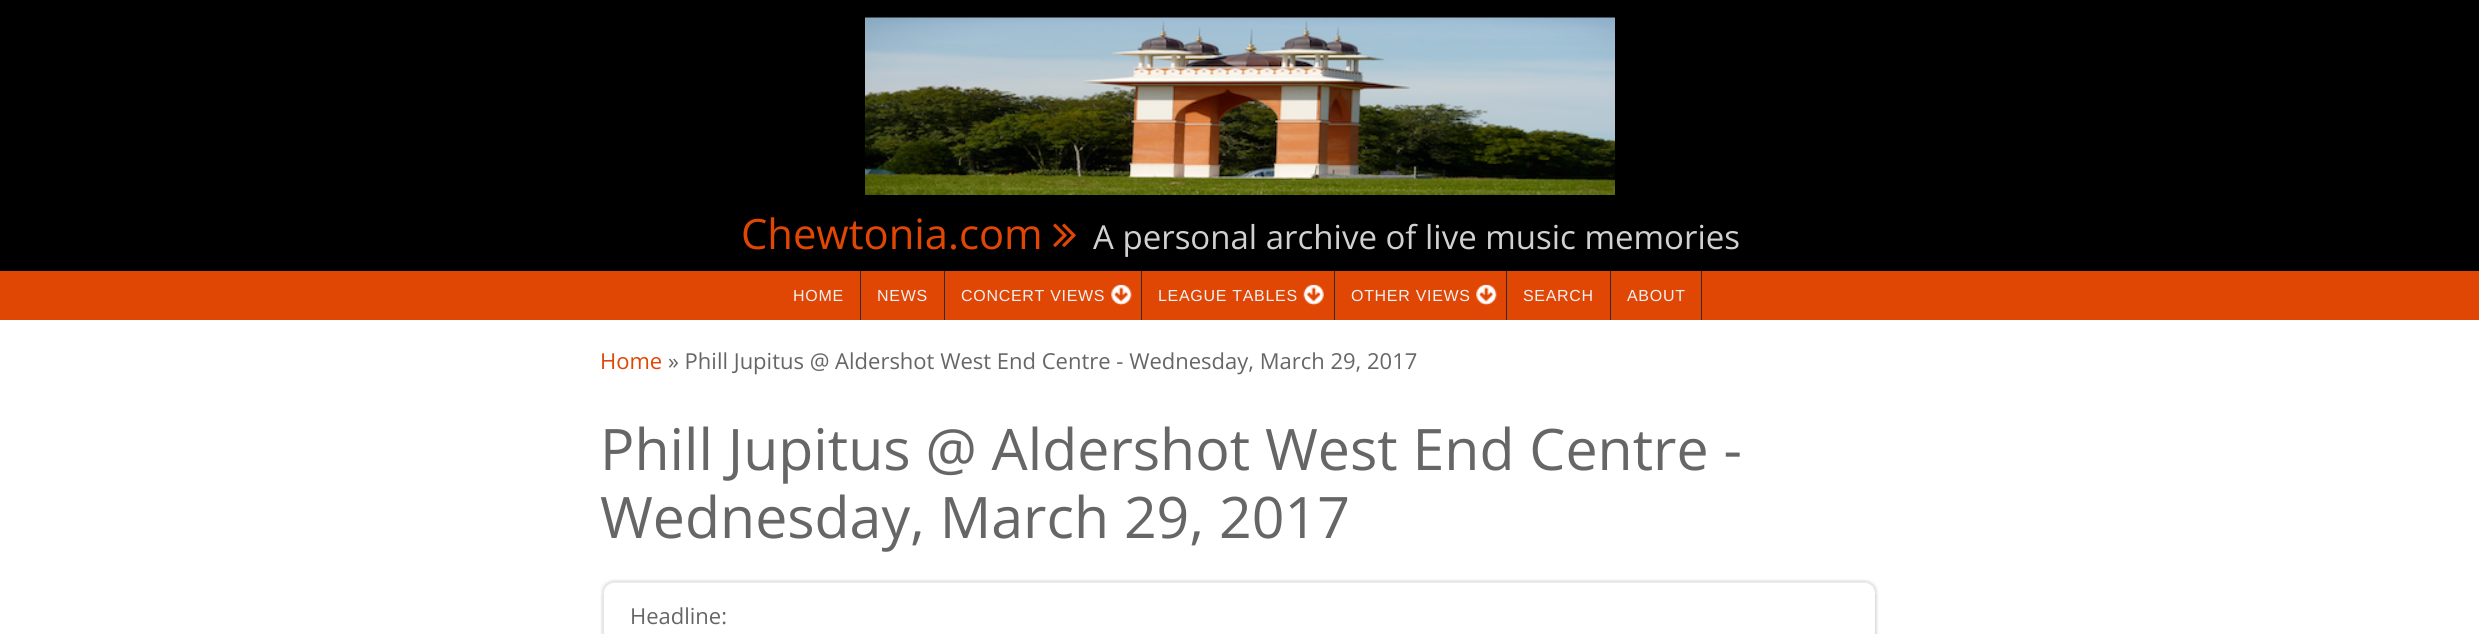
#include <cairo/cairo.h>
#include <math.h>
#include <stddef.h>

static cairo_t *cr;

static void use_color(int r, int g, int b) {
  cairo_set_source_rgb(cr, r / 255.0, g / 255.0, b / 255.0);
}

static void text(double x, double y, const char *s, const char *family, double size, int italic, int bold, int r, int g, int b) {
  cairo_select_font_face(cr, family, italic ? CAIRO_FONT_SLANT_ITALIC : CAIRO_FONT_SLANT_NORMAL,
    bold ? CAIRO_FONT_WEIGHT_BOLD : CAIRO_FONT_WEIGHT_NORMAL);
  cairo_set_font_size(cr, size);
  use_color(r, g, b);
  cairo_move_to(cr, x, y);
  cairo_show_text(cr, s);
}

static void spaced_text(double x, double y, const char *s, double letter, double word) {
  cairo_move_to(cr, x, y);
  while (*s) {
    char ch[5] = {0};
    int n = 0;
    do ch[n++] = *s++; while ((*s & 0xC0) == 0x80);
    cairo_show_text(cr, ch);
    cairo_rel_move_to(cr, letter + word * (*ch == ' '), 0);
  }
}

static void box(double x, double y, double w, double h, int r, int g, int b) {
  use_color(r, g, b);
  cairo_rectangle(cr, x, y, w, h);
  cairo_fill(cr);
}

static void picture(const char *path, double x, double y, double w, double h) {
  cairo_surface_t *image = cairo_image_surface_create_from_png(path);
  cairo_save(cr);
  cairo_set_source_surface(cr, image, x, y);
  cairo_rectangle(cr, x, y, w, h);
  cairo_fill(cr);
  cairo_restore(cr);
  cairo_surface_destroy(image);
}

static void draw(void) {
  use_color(255, 255, 255);
  cairo_paint(cr);
  box(0, 0, 2479, 271, 0, 0, 0);
  picture("img_01.png", 865, 17, 750, 178);
  picture("img_02.png", 1053, 223, 23, 24);
  box(0, 271, 2479, 49, 224, 70, 4);
  box(860, 271, 1, 49, 45, 45, 45);
  box(944, 271, 1, 49, 45, 45, 45);
  box(1141, 271, 1, 49, 45, 45, 45);
  picture("img_03.png", 1111, 284, 21, 22);
  box(1334, 271, 1, 49, 45, 45, 45);
  picture("img_04.png", 1303, 284, 21, 22);
  box(1506, 271, 1, 49, 45, 45, 45);
  picture("img_03.png", 1476, 284, 21, 22);
  box(1610, 271, 1, 49, 45, 45, 45);
  box(1701, 271, 1, 49, 45, 45, 45);
  picture("img_05.png", 613, 579, 1266, 4);
  picture("img_06.png", 600, 579, 13, 14);
  picture("img_07.png", 1866, 579, 13, 14);
  picture("img_08.png", 600, 592, 4, 42);
  picture("img_09.png", 1875, 592, 4, 42);
  text(741, 249, "Chewtonia.com", "Open Sans", 41.75, 0, 0, 224, 70, 4);
  text(1093, 249, "A personal archive of live music memories", "Open Sans", 33, 0, 0, 209, 209, 209);
  cairo_select_font_face(cr, "Liberation Sans", CAIRO_FONT_SLANT_NORMAL, CAIRO_FONT_WEIGHT_NORMAL);
  cairo_set_font_size(cr, 16);
  use_color(241, 241, 241);
  spaced_text(793, 301, "HOME", 0.7, 0);
  spaced_text(877, 301, "NEWS", 0.7, 0);
  spaced_text(961, 301, "CONCERT VIEWS", 0.7, 0);
  spaced_text(1158, 301, "LEAGUE TABLES", 0.7, 0);
  spaced_text(1351, 301, "OTHER VIEWS", 0.7, 0);
  spaced_text(1523, 301, "SEARCH", 0.7, 0);
  spaced_text(1627, 301, "ABOUT", 0.7, 0);
  text(600, 369, "Home", "Open Sans", 22, 0, 0, 224, 70, 4);
  text(668, 369, "» Phill Jupitus @ Aldershot West End Centre - Wednesday, March 29, 2017", "Open Sans", 22, 0, 0, 102, 102, 102);
  text(600, 470, "Phill Jupitus @ Aldershot West End Centre -", "Open Sans", 57.25, 0, 0, 102, 102, 102);
  text(600, 538, "Wednesday, March 29, 2017", "Open Sans", 57.25, 0, 0, 102, 102, 102);
  text(630, 624, "Headline:", "Open Sans", 22, 0, 0, 102, 102, 102);
}

int main(void) {
  cairo_surface_t *surface = cairo_image_surface_create(CAIRO_FORMAT_RGB24, 2479, 634);
  cr = cairo_create(surface);
  cairo_font_options_t *options = cairo_font_options_create();
  cairo_font_options_set_hint_metrics(options, CAIRO_HINT_METRICS_OFF);
  cairo_font_options_set_hint_style(options, CAIRO_HINT_STYLE_NONE);
  cairo_set_font_options(cr, options);
  cairo_set_miter_limit(cr, 4);
  draw();
  cairo_surface_write_to_png(surface, "out.png");
  cairo_font_options_destroy(options);
  cairo_destroy(cr);
  cairo_surface_destroy(surface);
  return 0;
}
